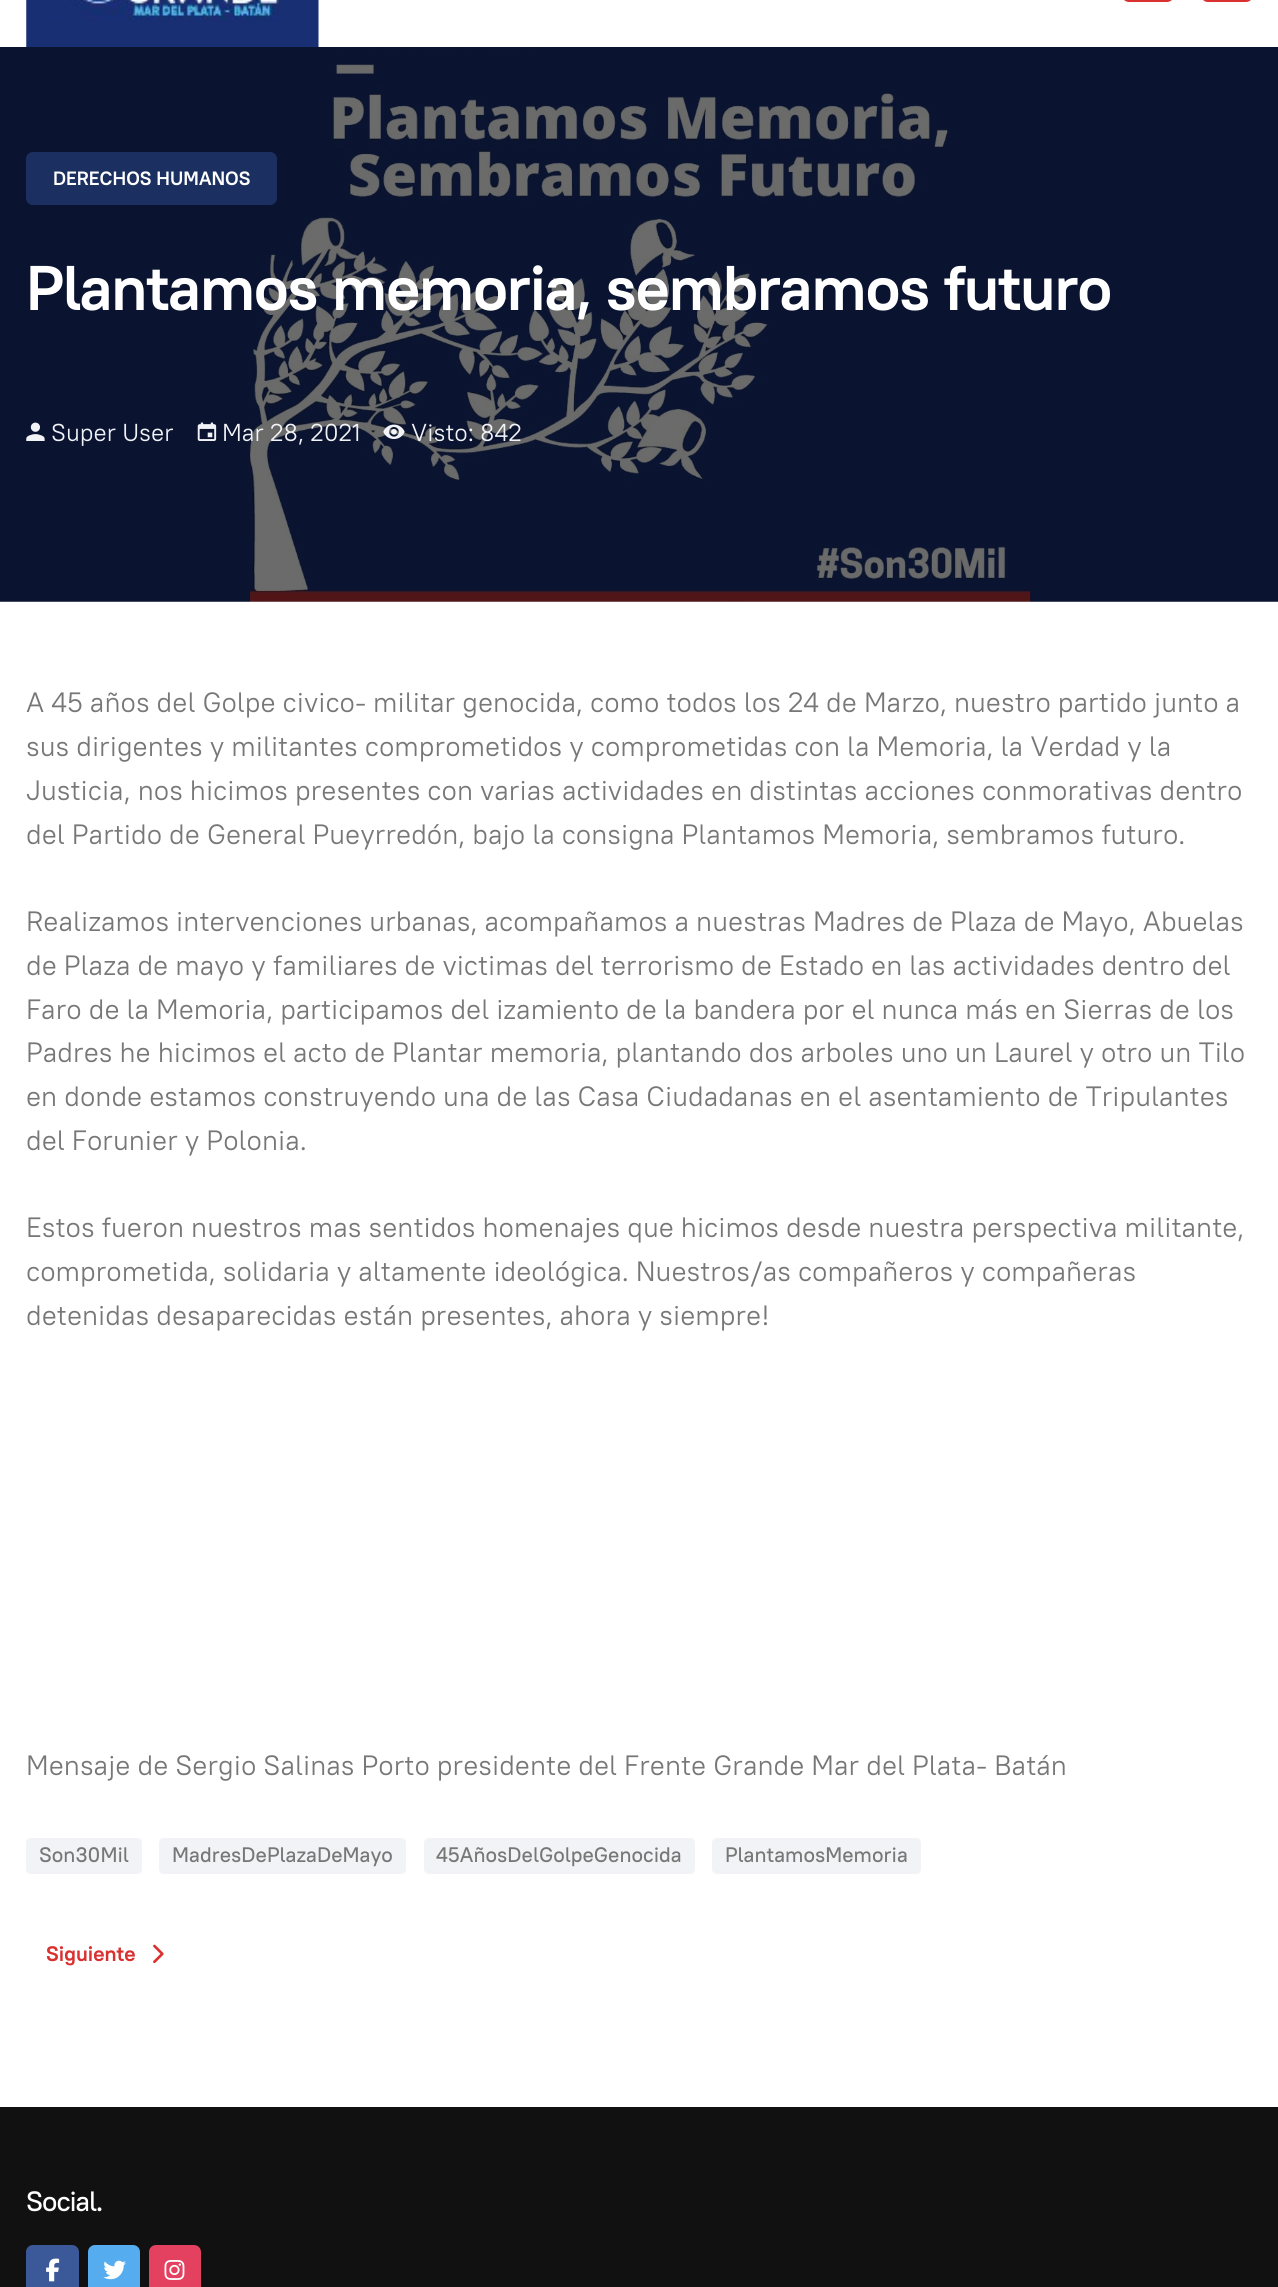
#include <cairo/cairo.h>
#include <math.h>
#include <stddef.h>

static cairo_t *cr;

static void use_color(int r, int g, int b) {
  cairo_set_source_rgb(cr, r / 255.0, g / 255.0, b / 255.0);
}

static void text(double x, double y, const char *s, const char *family, double size, int italic, int bold, int r, int g, int b) {
  cairo_select_font_face(cr, family, italic ? CAIRO_FONT_SLANT_ITALIC : CAIRO_FONT_SLANT_NORMAL,
    bold ? CAIRO_FONT_WEIGHT_BOLD : CAIRO_FONT_WEIGHT_NORMAL);
  cairo_set_font_size(cr, size);
  use_color(r, g, b);
  cairo_move_to(cr, x, y);
  cairo_show_text(cr, s);
}

static void spaced_text(double x, double y, const char *s, double letter, double word) {
  cairo_move_to(cr, x, y);
  while (*s) {
    char ch[5] = {0};
    int n = 0;
    do ch[n++] = *s++; while ((*s & 0xC0) == 0x80);
    cairo_show_text(cr, ch);
    cairo_rel_move_to(cr, letter + word * (*ch == ' '), 0);
  }
}

static void box(double x, double y, double w, double h, int r, int g, int b) {
  use_color(r, g, b);
  cairo_rectangle(cr, x, y, w, h);
  cairo_fill(cr);
}

static void round_rect(double x, double y, double w, double h, double r) {
  cairo_new_sub_path(cr);
  cairo_arc(cr, x + w - r, y + h - r, r, 0, M_PI / 2);
  cairo_arc(cr, x + r, y + h - r, r, M_PI / 2, M_PI);
  cairo_arc(cr, x + r, y + r, r, M_PI, 1.5 * M_PI);
  cairo_arc(cr, x + w - r, y + r, r, 1.5 * M_PI, 2 * M_PI);
  cairo_close_path(cr);
}

static void picture(const char *path, double x, double y, double w, double h) {
  cairo_surface_t *image = cairo_image_surface_create_from_png(path);
  cairo_save(cr);
  cairo_set_source_surface(cr, image, x, y);
  cairo_rectangle(cr, x, y, w, h);
  cairo_fill(cr);
  cairo_restore(cr);
  cairo_surface_destroy(image);
}

static void draw(void) {
  use_color(255, 255, 255);
  cairo_paint(cr);
  use_color(217, 48, 48);
  round_rect(1122, -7, 52, 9, 7);
  cairo_fill(cr);
  round_rect(1201, -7, 52, 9, 7);
  cairo_fill(cr);
  picture("img_01.png", 26, 0, 293, 47);
  picture("img_02.png", 0, 47, 1278, 555);
  use_color(27, 48, 96);
  round_rect(26, 152, 251, 53, 7);
  cairo_fill(cr);
  picture("img_03.png", 26, 422, 19, 19);
  picture("img_04.png", 197, 422, 20, 19);
  picture("img_05.png", 383, 424, 22, 15);
  use_color(242, 243, 247);
  round_rect(26, 1838, 116, 36, 5);
  cairo_fill(cr);
  round_rect(159, 1838, 247, 36, 5);
  cairo_fill(cr);
  round_rect(424, 1838, 271, 36, 5);
  cairo_fill(cr);
  round_rect(712, 1838, 209, 36, 5);
  cairo_fill(cr);
  picture("img_06.png", 153, 1944, 11, 19);
  box(0, 2107, 1278, 180, 17, 17, 17);
  use_color(59, 89, 153);
  round_rect(26, 2245, 53, 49, 7);
  cairo_fill(cr);
  picture("img_07.png", 46, 2258, 14, 24);
  use_color(85, 172, 238);
  round_rect(88, 2245, 52, 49, 7);
  cairo_fill(cr);
  picture("img_08.png", 103, 2260, 23, 20);
  use_color(228, 64, 95);
  round_rect(149, 2245, 52, 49, 7);
  cairo_fill(cr);
  picture("img_09.png", 164, 2260, 21, 20);
  text(53, 185, "DERECHOS HUMANOS", "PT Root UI", 19.25, 0, 1, 255, 255, 255);
  cairo_set_font_size(cr, 63);
  spaced_text(26, 310, "Plantamos memoria, sembramos futuro", -1.05, 0);
  text(51, 441, "Super User", "PT Root UI", 24.5, 0, 0, 242, 243, 247);
  text(222, 441, "Mar 28, 2021", "PT Root UI", 24.5, 0, 0, 242, 243, 247);
  text(411, 441, "Visto: 842", "PT Root UI", 24.5, 0, 0, 242, 243, 247);
  text(26, 712, "A 45 años del Golpe civico- militar genocida, como todos los 24 de Marzo, nuestro partido junto a", "PT Root UI", 28, 0, 0, 119, 119, 119);
  text(26, 756, "sus dirigentes y militantes comprometidos y comprometidas con la Memoria, la Verdad y la", "PT Root UI", 28, 0, 0, 119, 119, 119);
  text(26, 800, "Justicia, nos hicimos presentes con varias actividades en distintas acciones conmorativas dentro", "PT Root UI", 28, 0, 0, 119, 119, 119);
  text(26, 844, "del Partido de General Pueyrredón, bajo la consigna Plantamos Memoria, sembramos futuro.", "PT Root UI", 28, 0, 0, 119, 119, 119);
  text(26, 931, "Realizamos intervenciones urbanas, acompañamos a nuestras Madres de Plaza de Mayo, Abuelas", "PT Root UI", 28, 0, 0, 119, 119, 119);
  text(26, 975, "de Plaza de mayo y familiares de victimas del terrorismo de Estado en las actividades dentro del", "PT Root UI", 28, 0, 0, 119, 119, 119);
  text(26, 1019, "Faro de la Memoria, participamos del izamiento de la bandera por el nunca más en Sierras de los", "PT Root UI", 28, 0, 0, 119, 119, 119);
  text(26, 1062, "Padres he hicimos el acto de Plantar memoria, plantando dos arboles uno un Laurel y otro un Tilo", "PT Root UI", 28, 0, 0, 119, 119, 119);
  text(26, 1106, "en donde estamos construyendo una de las Casa Ciudadanas en el asentamiento de Tripulantes", "PT Root UI", 28, 0, 0, 119, 119, 119);
  text(26, 1150, "del Forunier y Polonia.", "PT Root UI", 28, 0, 0, 119, 119, 119);
  text(26, 1237, "Estos fueron nuestros mas sentidos homenajes que hicimos desde nuestra perspectiva militante,", "PT Root UI", 28, 0, 0, 119, 119, 119);
  text(26, 1281, "comprometida, solidaria y altamente ideológica. Nuestros/as compañeros y compañeras", "PT Root UI", 28, 0, 0, 119, 119, 119);
  text(26, 1325, "detenidas desaparecidas están presentes, ahora y siempre!", "PT Root UI", 28, 0, 0, 119, 119, 119);
  text(26, 1775, "Mensaje de Sergio Salinas Porto presidente del Frente Grande Mar del Plata- Batán", "PT Root UI", 28, 0, 0, 119, 119, 119);
  text(39, 1862, "Son30Mil", "PT Root UI Medium", 21, 0, 0, 119, 119, 119);
  text(172, 1862, "MadresDePlazaDeMayo", "PT Root UI Medium", 21, 0, 0, 119, 119, 119);
  text(436, 1862, "45AñosDelGolpeGenocida", "PT Root UI Medium", 21, 0, 0, 119, 119, 119);
  text(725, 1862, "PlantamosMemoria", "PT Root UI Medium", 21, 0, 0, 119, 119, 119);
  text(46, 1961, "Siguiente", "PT Root UI", 21, 0, 1, 217, 48, 48);
  cairo_select_font_face(cr, "PT Root UI Medium", CAIRO_FONT_SLANT_NORMAL, CAIRO_FONT_WEIGHT_NORMAL);
  cairo_set_font_size(cr, 28);
  use_color(255, 255, 255);
  spaced_text(26, 2211, "Social.", -1.05, 0);
}

int main(void) {
  cairo_surface_t *surface = cairo_image_surface_create(CAIRO_FORMAT_RGB24, 1278, 2287);
  cr = cairo_create(surface);
  cairo_font_options_t *options = cairo_font_options_create();
  cairo_font_options_set_hint_metrics(options, CAIRO_HINT_METRICS_OFF);
  cairo_font_options_set_hint_style(options, CAIRO_HINT_STYLE_NONE);
  cairo_set_font_options(cr, options);
  cairo_set_miter_limit(cr, 4);
  draw();
  cairo_surface_write_to_png(surface, "out.png");
  cairo_font_options_destroy(options);
  cairo_destroy(cr);
  cairo_surface_destroy(surface);
  return 0;
}
